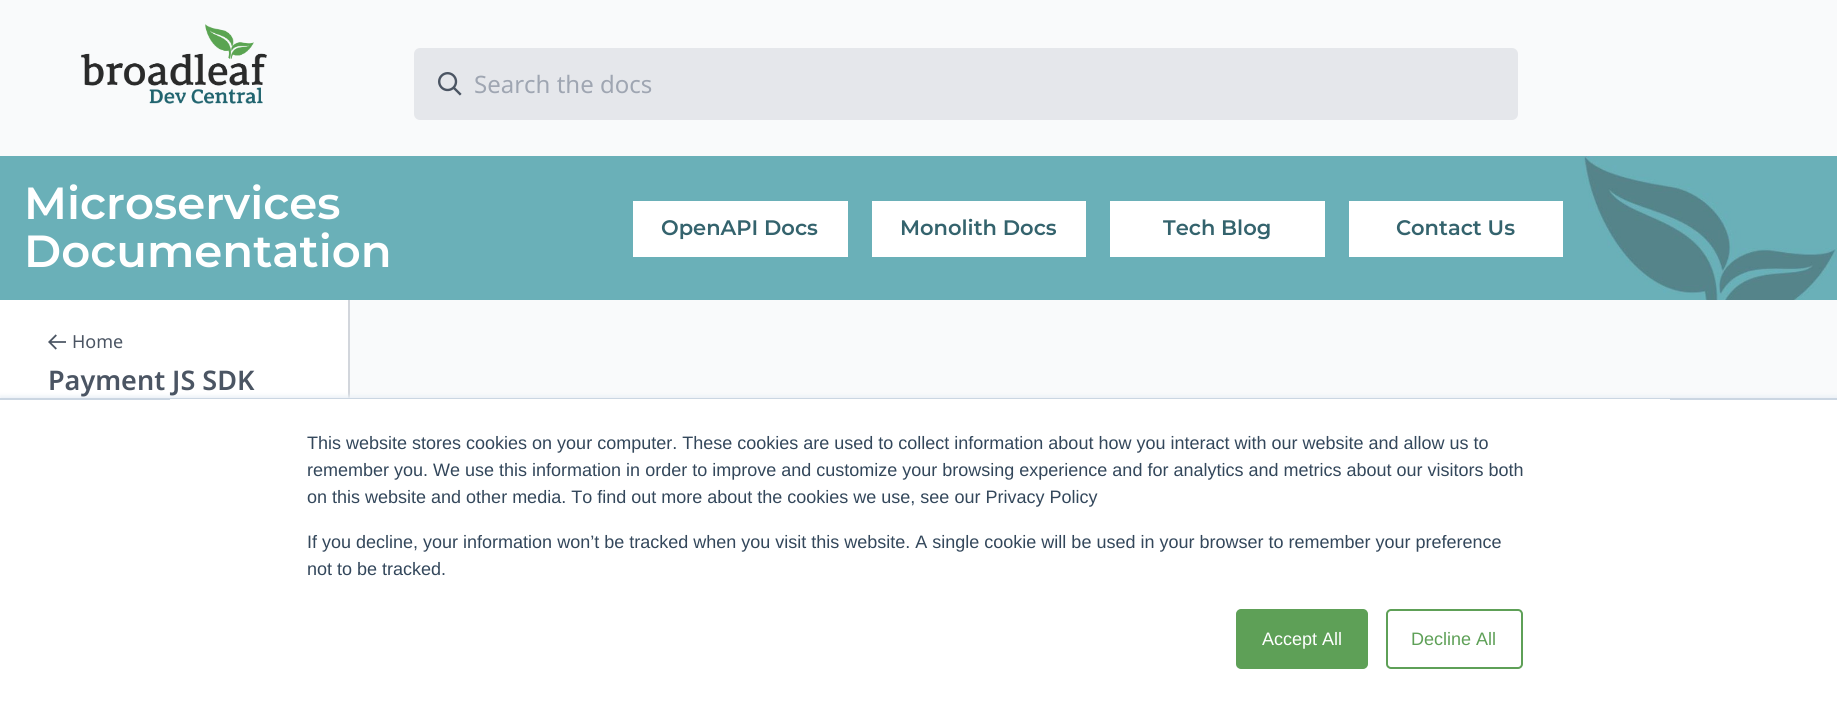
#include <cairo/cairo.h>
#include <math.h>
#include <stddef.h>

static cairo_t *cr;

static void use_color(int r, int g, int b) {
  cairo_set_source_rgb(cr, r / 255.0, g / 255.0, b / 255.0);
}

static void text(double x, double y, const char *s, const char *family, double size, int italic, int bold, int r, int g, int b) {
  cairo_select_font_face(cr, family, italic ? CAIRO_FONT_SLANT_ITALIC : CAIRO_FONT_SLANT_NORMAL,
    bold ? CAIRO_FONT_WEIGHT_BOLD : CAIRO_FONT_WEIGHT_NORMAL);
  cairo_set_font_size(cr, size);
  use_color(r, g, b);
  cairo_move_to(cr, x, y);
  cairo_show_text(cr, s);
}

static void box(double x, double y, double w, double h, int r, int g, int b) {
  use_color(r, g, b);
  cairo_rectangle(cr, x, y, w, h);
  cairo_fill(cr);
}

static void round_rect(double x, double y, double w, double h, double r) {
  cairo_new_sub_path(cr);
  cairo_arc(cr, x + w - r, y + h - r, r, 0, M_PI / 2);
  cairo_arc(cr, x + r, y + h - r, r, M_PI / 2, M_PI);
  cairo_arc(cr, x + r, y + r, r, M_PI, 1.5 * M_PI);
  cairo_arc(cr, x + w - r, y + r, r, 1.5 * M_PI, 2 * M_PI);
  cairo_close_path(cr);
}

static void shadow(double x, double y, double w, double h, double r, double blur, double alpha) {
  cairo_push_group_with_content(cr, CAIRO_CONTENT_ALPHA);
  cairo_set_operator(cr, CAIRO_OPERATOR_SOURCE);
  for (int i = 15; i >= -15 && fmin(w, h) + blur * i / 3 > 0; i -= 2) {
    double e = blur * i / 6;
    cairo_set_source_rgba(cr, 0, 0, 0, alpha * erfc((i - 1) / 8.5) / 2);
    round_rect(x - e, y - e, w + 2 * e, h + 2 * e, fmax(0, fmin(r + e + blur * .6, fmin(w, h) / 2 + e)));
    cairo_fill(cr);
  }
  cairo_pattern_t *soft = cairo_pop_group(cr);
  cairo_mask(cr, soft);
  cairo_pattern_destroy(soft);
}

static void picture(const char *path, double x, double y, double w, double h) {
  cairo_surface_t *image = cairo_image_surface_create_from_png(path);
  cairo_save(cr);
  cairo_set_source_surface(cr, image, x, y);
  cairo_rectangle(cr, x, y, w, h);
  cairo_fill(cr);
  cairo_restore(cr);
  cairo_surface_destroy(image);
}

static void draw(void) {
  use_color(249, 250, 251);
  cairo_paint(cr);
  picture("img_01.png", 81, 24, 186, 80);
  use_color(229, 231, 235);
  round_rect(414, 48, 1104, 72, 6);
  cairo_fill(cr);
  picture("img_02.png", 438, 72, 24, 24);
  box(0, 156, 1582, 144, 106, 176, 184);
  picture("img_03.png", 1582, 156, 255, 144);
  box(633, 201, 215, 56, 255, 255, 255);
  box(872, 201, 214, 56, 255, 255, 255);
  box(1110, 201, 215, 56, 255, 255, 255);
  box(1349, 201, 214, 56, 255, 255, 255);
  box(0, 300, 348, 98, 255, 255, 255);
  box(348, 300, 2, 98, 210, 214, 220);
  picture("img_04.png", 48, 334, 18, 16);
  use_color(234, 240, 246);
  shadow(0, 396, 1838, 311, 0, 2, 1);
  box(0, 400, 1837, 307, 255, 255, 255);
  box(0, 398, 1837, 2, 203, 214, 226);
  box(170, 399, 1500, 1, 255, 255, 255);
  use_color(94, 160, 87);
  round_rect(1237, 610, 130, 58, 4);
  cairo_fill_preserve(cr);
  cairo_stroke(cr);
  round_rect(1387, 610, 135, 58, 4);
  cairo_stroke(cr);
  text(474, 93, "Search the docs", "Noto Sans", 24, 0, 0, 159, 166, 178);
  text(24, 219, "Microservices", "Montserrat SemiBold", 45, 0, 0, 255, 255, 255);
  text(24, 267, "Documentation", "Montserrat SemiBold", 45, 0, 0, 255, 255, 255);
  text(661, 235, "OpenAPI Docs", "Montserrat SemiBold", 21, 0, 0, 52, 99, 109);
  text(900, 235, "Monolith Docs", "Montserrat SemiBold", 21, 0, 0, 52, 99, 109);
  text(1163, 235, "Tech Blog", "Montserrat SemiBold", 21, 0, 0, 52, 99, 109);
  text(1396, 235, "Contact Us", "Montserrat SemiBold", 21, 0, 0, 52, 99, 109);
  text(72, 348, "Home", "Noto Sans", 18, 0, 0, 75, 85, 99);
  text(48, 390, "Payment JS SDK", "Noto Sans SemiBold", 27, 0, 0, 75, 85, 99);
  text(307, 449, "This website stores cookies on your computer. These cookies are used to collect information about how you interact with our website and allow us to", "Liberation Sans", 18, 0, 0, 51, 71, 91);
  text(307, 476, "remember you. We use this information in order to improve and customize your browsing experience and for analytics and metrics about our visitors both", "Liberation Sans", 18, 0, 0, 51, 71, 91);
  text(307, 503, "on this website and other media. To find out more about the cookies we use, see our Privacy Policy", "Liberation Sans", 18, 0, 0, 51, 71, 91);
  text(307, 548, "If you decline, your information won’t be tracked when you visit this website. A single cookie will be used in your browser to remember your preference", "Liberation Sans", 18, 0, 0, 51, 71, 91);
  text(307, 575, "not to be tracked.", "Liberation Sans", 18, 0, 0, 51, 71, 91);
  text(1262, 645, "Accept All", "Liberation Sans", 18, 0, 0, 255, 255, 255);
  text(1411, 645, "Decline All", "Liberation Sans", 18, 0, 0, 94, 160, 87);
}

int main(void) {
  cairo_surface_t *surface = cairo_image_surface_create(CAIRO_FORMAT_RGB24, 1837, 707);
  cr = cairo_create(surface);
  cairo_font_options_t *options = cairo_font_options_create();
  cairo_font_options_set_hint_metrics(options, CAIRO_HINT_METRICS_OFF);
  cairo_font_options_set_hint_style(options, CAIRO_HINT_STYLE_NONE);
  cairo_set_font_options(cr, options);
  cairo_set_miter_limit(cr, 4);
  draw();
  cairo_surface_write_to_png(surface, "out.png");
  cairo_font_options_destroy(options);
  cairo_destroy(cr);
  cairo_surface_destroy(surface);
  return 0;
}
